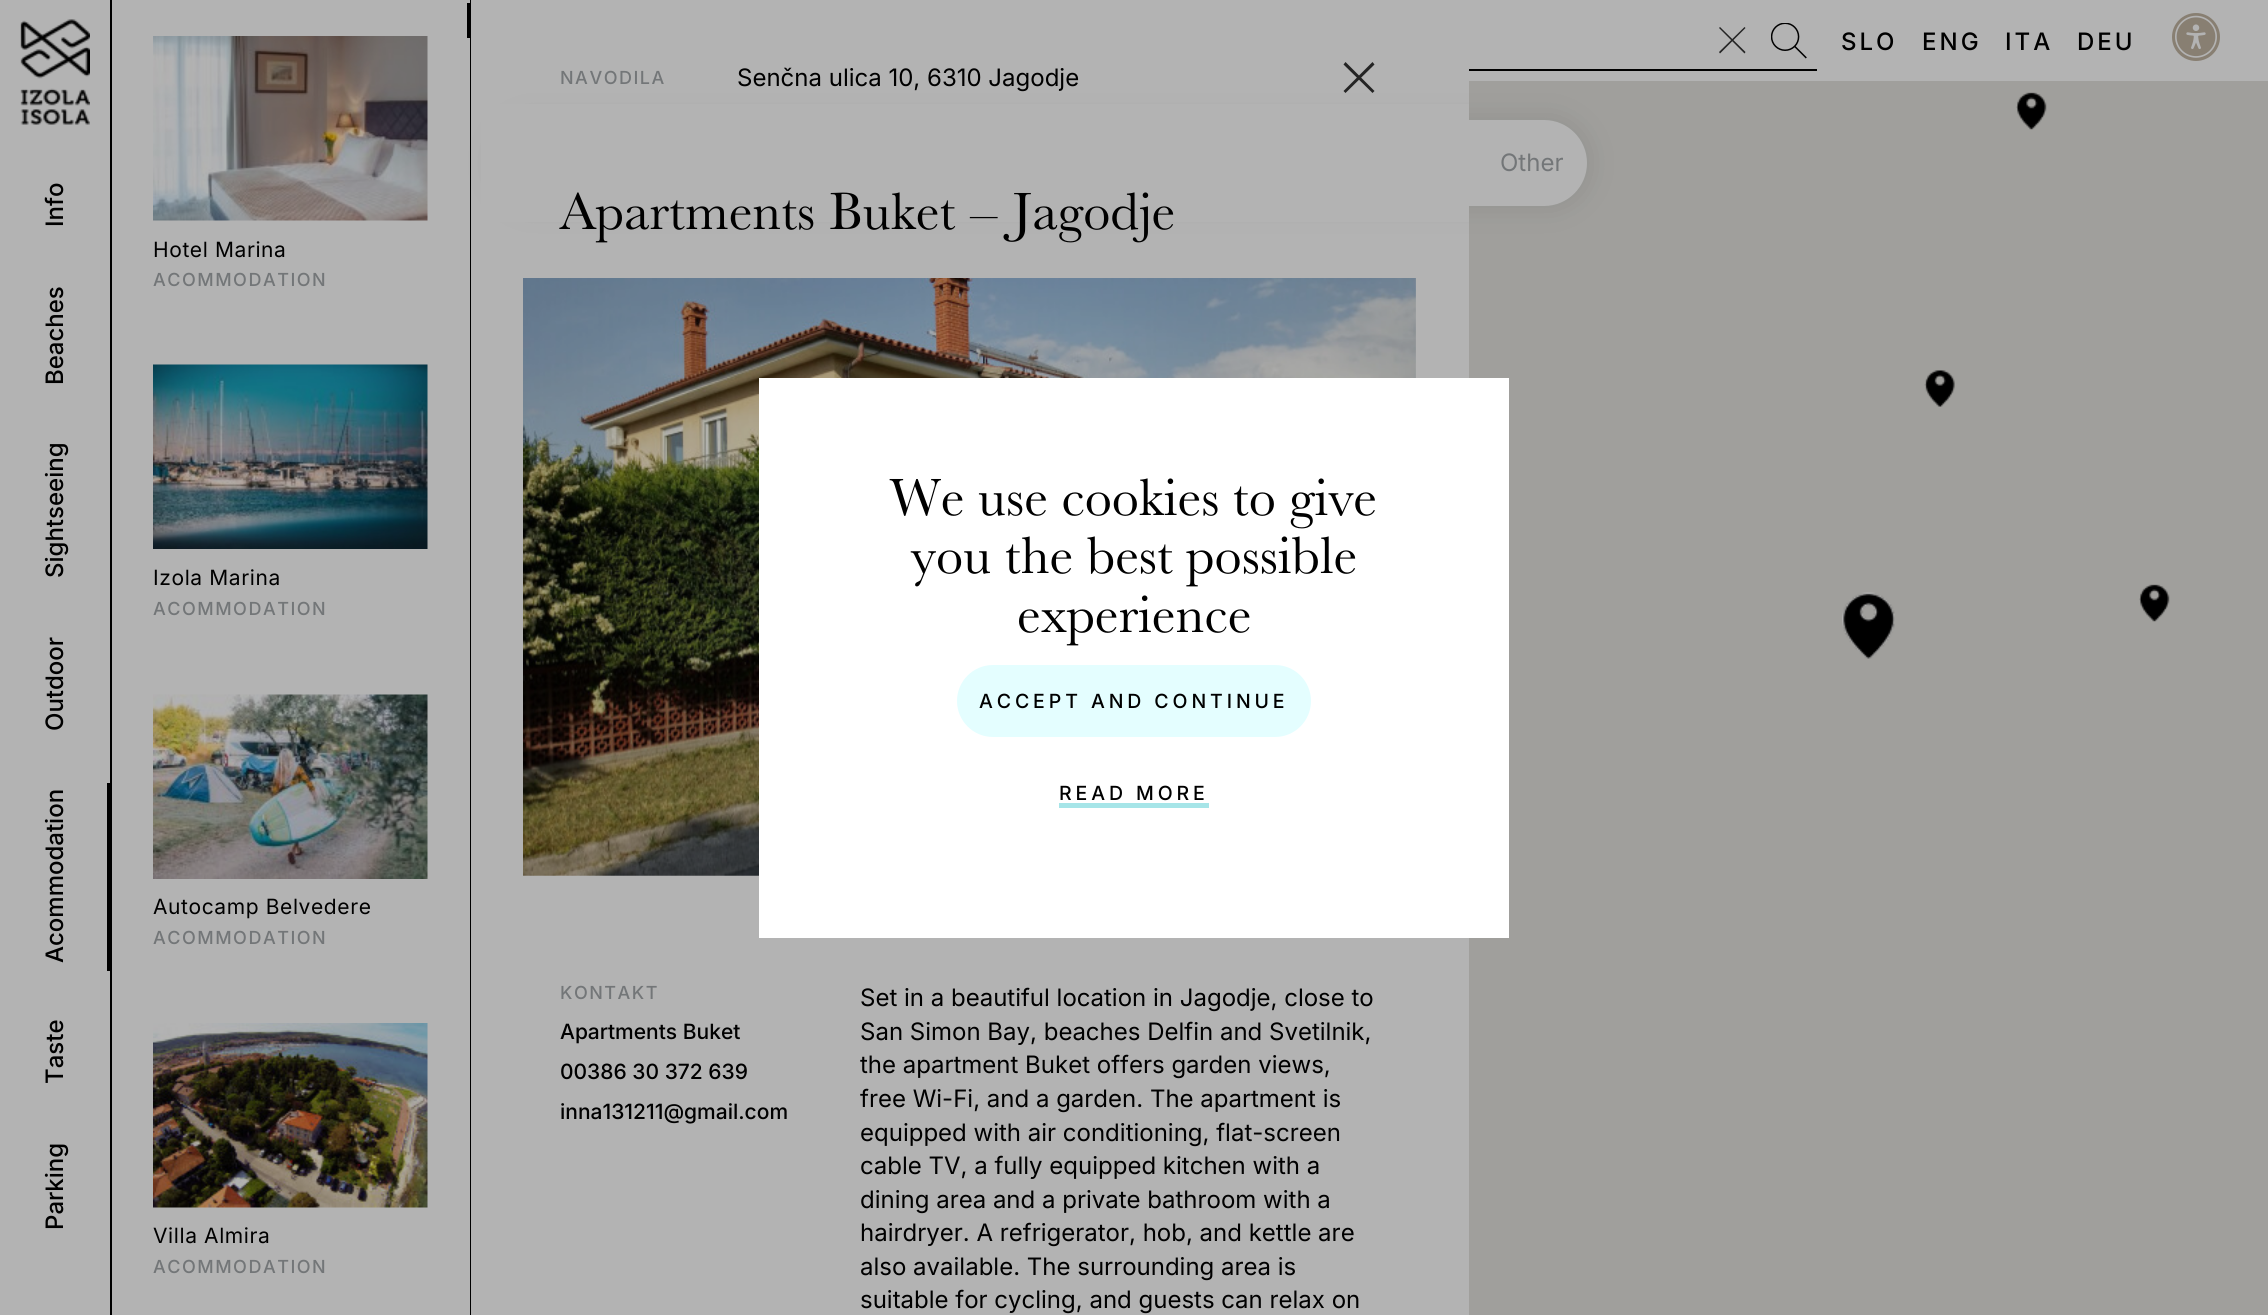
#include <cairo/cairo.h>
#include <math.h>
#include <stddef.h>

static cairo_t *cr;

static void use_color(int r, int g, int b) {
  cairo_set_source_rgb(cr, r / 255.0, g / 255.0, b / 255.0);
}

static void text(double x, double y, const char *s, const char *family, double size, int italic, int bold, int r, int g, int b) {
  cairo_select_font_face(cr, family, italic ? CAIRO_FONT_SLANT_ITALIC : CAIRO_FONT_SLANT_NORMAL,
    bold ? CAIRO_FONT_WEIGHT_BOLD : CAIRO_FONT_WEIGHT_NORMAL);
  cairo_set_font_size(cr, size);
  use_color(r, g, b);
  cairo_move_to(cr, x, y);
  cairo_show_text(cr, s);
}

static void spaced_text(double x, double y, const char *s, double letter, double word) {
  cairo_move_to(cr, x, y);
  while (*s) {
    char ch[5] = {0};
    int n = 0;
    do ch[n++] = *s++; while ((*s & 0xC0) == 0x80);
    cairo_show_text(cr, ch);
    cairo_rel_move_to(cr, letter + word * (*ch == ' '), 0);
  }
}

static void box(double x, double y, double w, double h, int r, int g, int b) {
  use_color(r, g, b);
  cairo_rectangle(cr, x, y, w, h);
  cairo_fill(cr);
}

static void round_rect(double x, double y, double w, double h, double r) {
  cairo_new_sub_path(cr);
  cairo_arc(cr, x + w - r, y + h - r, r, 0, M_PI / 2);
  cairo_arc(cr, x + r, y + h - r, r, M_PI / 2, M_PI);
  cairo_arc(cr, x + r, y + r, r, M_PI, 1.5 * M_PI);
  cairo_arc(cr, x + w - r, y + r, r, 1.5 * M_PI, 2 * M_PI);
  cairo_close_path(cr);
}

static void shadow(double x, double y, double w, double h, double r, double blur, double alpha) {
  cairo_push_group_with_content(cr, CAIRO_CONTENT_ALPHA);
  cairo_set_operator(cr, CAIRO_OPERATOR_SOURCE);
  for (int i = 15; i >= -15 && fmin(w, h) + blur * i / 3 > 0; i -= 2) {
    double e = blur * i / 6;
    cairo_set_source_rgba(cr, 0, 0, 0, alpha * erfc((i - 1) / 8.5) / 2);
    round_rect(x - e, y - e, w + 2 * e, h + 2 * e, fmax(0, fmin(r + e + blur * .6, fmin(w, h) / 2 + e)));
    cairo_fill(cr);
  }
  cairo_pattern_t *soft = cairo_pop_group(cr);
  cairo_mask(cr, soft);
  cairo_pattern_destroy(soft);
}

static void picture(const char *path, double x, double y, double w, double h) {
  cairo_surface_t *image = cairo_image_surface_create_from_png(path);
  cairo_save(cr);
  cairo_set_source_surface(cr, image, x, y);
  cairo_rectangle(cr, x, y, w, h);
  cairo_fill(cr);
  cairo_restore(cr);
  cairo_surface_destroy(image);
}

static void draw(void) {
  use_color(179, 179, 179);
  cairo_paint(cr);
  box(1469, 69, 348, 2, 0, 0, 0);
  use_color(36, 36, 36);
  cairo_new_path(cr);
  cairo_move_to(cr, 1744.5, 27);
  cairo_line_to(cr, 1745.5, 28);
  cairo_line_to(cr, 1720, 53.5);
  cairo_line_to(cr, 1719, 52);
  cairo_close_path(cr);
  cairo_fill(cr);
  cairo_new_path(cr);
  cairo_move_to(cr, 1719, 28);
  cairo_line_to(cr, 1720, 27);
  cairo_line_to(cr, 1745.5, 52);
  cairo_line_to(cr, 1744.5, 53.5);
  cairo_close_path(cr);
  cairo_fill(cr);
  picture("img_01.png", 1771, 23, 36, 36);
  picture("img_02.png", 2172, 13, 48, 48);
  box(110, 0, 2, 1315, 0, 0, 0);
  picture("img_03.png", 20, 19, 70, 106);
  box(107, 783, 3, 188, 0, 0, 0);
  box(467, 3, 3, 35, 0, 0, 0);
  box(470, 0, 1, 1315, 0, 0, 0);
  picture("img_04.png", 153, 36, 275, 185);
  picture("img_05.png", 153, 364, 275, 185);
  picture("img_06.png", 153, 694, 275, 185);
  picture("img_07.png", 153, 1023, 275, 185);
  box(1469, 81, 799, 1234, 160, 159, 156);
  use_color(0, 0, 0);
  shadow(495, 120, 1092, 86, 43, 15, 0.1);
  use_color(179, 179, 179);
  round_rect(495, 120, 1092, 86, 43);
  cairo_fill(cr);
  box(481, 104, 988, 118, 179, 179, 179);
  use_color(36, 36, 36);
  cairo_new_path(cr);
  cairo_move_to(cr, 1372.5, 62);
  cairo_line_to(cr, 1374.5, 64.5);
  cairo_line_to(cr, 1345.5, 93);
  cairo_line_to(cr, 1343.5, 91);
  cairo_close_path(cr);
  cairo_fill(cr);
  cairo_new_path(cr);
  cairo_move_to(cr, 1343.5, 64.5);
  cairo_line_to(cr, 1345.5, 62);
  cairo_line_to(cr, 1374.5, 91);
  cairo_line_to(cr, 1372.5, 93);
  cairo_close_path(cr);
  cairo_fill(cr);
  picture("img_08.png", 523, 278, 893, 598);
  picture("img_09.png", 2016, 92, 31, 38);
  picture("img_10.png", 1924, 370, 31, 37);
  picture("img_11.png", 1842, 592, 53, 67);
  picture("img_09.png", 2139, 584, 31, 38);
  box(759, 378, 750, 560, 255, 255, 255);
  use_color(228, 254, 255);
  round_rect(957, 665, 354, 72, 36);
  cairo_fill(cr);
  box(1059, 803, 150, 5, 166, 229, 232);
  cairo_select_font_face(cr, "Inter Medium", CAIRO_FONT_SLANT_NORMAL, CAIRO_FONT_WEIGHT_NORMAL);
  cairo_set_font_size(cr, 24);
  use_color(0, 0, 0);
  spaced_text(1841, 50, "SLO", 3, 0);
  spaced_text(1922, 50, "ENG", 3, 0);
  spaced_text(2005, 50, "ITA", 3, 0);
  spaced_text(2077, 50, "DEU", 3, 0);
  cairo_save(cr);
  cairo_translate(cr, 63, 227);
  cairo_rotate(cr, -90 * M_PI / 180);
  text(0, 0, "Info", "Inter Medium", 24, 0, 0, 0, 0, 0);
  cairo_restore(cr);
  cairo_save(cr);
  cairo_translate(cr, 63, 385);
  cairo_rotate(cr, -90 * M_PI / 180);
  text(0, 0, "Beaches", "Inter Medium", 24, 0, 0, 0, 0, 0);
  cairo_restore(cr);
  cairo_save(cr);
  cairo_translate(cr, 63, 578);
  cairo_rotate(cr, -90 * M_PI / 180);
  text(0, 0, "Sightseeing", "Inter Medium", 24, 0, 0, 0, 0, 0);
  cairo_restore(cr);
  cairo_save(cr);
  cairo_translate(cr, 63, 731);
  cairo_rotate(cr, -90 * M_PI / 180);
  text(0, 0, "Outdoor", "Inter Medium", 24, 0, 0, 0, 0, 0);
  cairo_restore(cr);
  cairo_save(cr);
  cairo_translate(cr, 63, 963);
  cairo_rotate(cr, -90 * M_PI / 180);
  text(0, 0, "Acommodation", "Inter Medium", 24, 0, 0, 0, 0, 0);
  cairo_restore(cr);
  cairo_save(cr);
  cairo_translate(cr, 63, 1084);
  cairo_rotate(cr, -90 * M_PI / 180);
  text(0, 0, "Taste", "Inter Medium", 24, 0, 0, 0, 0, 0);
  cairo_restore(cr);
  cairo_save(cr);
  cairo_translate(cr, 63, 1230);
  cairo_rotate(cr, -90 * M_PI / 180);
  text(0, 0, "Parking", "Inter Medium", 24, 0, 0, 0, 0, 0);
  cairo_restore(cr);
  cairo_select_font_face(cr, "Inter", CAIRO_FONT_SLANT_NORMAL, CAIRO_FONT_WEIGHT_NORMAL);
  cairo_set_font_size(cr, 21);
  use_color(0, 0, 0);
  spaced_text(153, 257, "Hotel Marina", 0.6, 0);
  cairo_select_font_face(cr, "Inter Medium", CAIRO_FONT_SLANT_NORMAL, CAIRO_FONT_WEIGHT_NORMAL);
  cairo_set_font_size(cr, 18);
  use_color(115, 118, 120);
  spaced_text(153, 286, "ACOMMODATION", 1.5, 0);
  cairo_select_font_face(cr, "Inter", CAIRO_FONT_SLANT_NORMAL, CAIRO_FONT_WEIGHT_NORMAL);
  cairo_set_font_size(cr, 21);
  use_color(0, 0, 0);
  spaced_text(153, 585, "Izola Marina", 0.6, 0);
  cairo_select_font_face(cr, "Inter Medium", CAIRO_FONT_SLANT_NORMAL, CAIRO_FONT_WEIGHT_NORMAL);
  cairo_set_font_size(cr, 18);
  use_color(115, 118, 120);
  spaced_text(153, 615, "ACOMMODATION", 1.5, 0);
  cairo_select_font_face(cr, "Inter", CAIRO_FONT_SLANT_NORMAL, CAIRO_FONT_WEIGHT_NORMAL);
  cairo_set_font_size(cr, 21);
  use_color(0, 0, 0);
  spaced_text(153, 914, "Autocamp Belvedere", 0.6, 0);
  cairo_select_font_face(cr, "Inter Medium", CAIRO_FONT_SLANT_NORMAL, CAIRO_FONT_WEIGHT_NORMAL);
  cairo_set_font_size(cr, 18);
  use_color(115, 118, 120);
  spaced_text(153, 944, "ACOMMODATION", 1.5, 0);
  cairo_select_font_face(cr, "Inter", CAIRO_FONT_SLANT_NORMAL, CAIRO_FONT_WEIGHT_NORMAL);
  cairo_set_font_size(cr, 21);
  use_color(0, 0, 0);
  spaced_text(153, 1243, "Villa Almira", 0.6, 0);
  cairo_select_font_face(cr, "Inter Medium", CAIRO_FONT_SLANT_NORMAL, CAIRO_FONT_WEIGHT_NORMAL);
  cairo_set_font_size(cr, 18);
  use_color(115, 118, 120);
  spaced_text(153, 1273, "ACOMMODATION", 1.5, 0);
  spaced_text(560, 84, "NAVODILA", 1.5, 0);
  text(737, 86, "Senčna ulica 10, 6310 Jagodje", "Inter", 24, 0, 0, 0, 0, 0);
  text(560, 229, "Apartments Buket – Jagodje", "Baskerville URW", 54, 0, 0, 0, 0, 0);
  cairo_select_font_face(cr, "Inter Medium", CAIRO_FONT_SLANT_NORMAL, CAIRO_FONT_WEIGHT_NORMAL);
  cairo_set_font_size(cr, 18);
  use_color(115, 118, 120);
  spaced_text(560, 999, "KONTAKT", 1.5, 0);
  text(560, 1039, "Apartments Buket", "Inter Medium", 21, 0, 0, 0, 0, 0);
  text(560, 1079, "00386 30 372 639", "Inter Medium", 21, 0, 0, 0, 0, 0);
  text(560, 1119, "inna131211@gmail.com", "Inter Medium", 21, 0, 0, 0, 0, 0);
  text(860, 1006, "Set in a beautiful location in Jagodje, close to", "Inter", 24, 0, 0, 0, 0, 0);
  text(860, 1040, "San Simon Bay, beaches Delfin and Svetilnik,", "Inter", 24, 0, 0, 0, 0, 0);
  text(860, 1073, "the apartment Buket offers garden views,", "Inter", 24, 0, 0, 0, 0, 0);
  text(860, 1107, "free Wi-Fi, and a garden. The apartment is", "Inter", 24, 0, 0, 0, 0, 0);
  text(860, 1141, "equipped with air conditioning, flat-screen", "Inter", 24, 0, 0, 0, 0, 0);
  text(860, 1174, "cable TV, a fully equipped kitchen with a", "Inter", 24, 0, 0, 0, 0, 0);
  text(860, 1208, "dining area and a private bathroom with a", "Inter", 24, 0, 0, 0, 0, 0);
  text(860, 1241, "hairdryer. A refrigerator, hob, and kettle are", "Inter", 24, 0, 0, 0, 0, 0);
  text(860, 1275, "also available. The surrounding area is", "Inter", 24, 0, 0, 0, 0, 0);
  text(860, 1308, "suitable for cycling, and guests can relax on", "Inter", 24, 0, 0, 0, 0, 0);
  text(1500, 171, "Other", "Inter", 24, 0, 0, 115, 118, 120);
  text(890, 515, "We use cookies to give", "Baskerville URW", 54, 0, 0, 0, 0, 0);
  text(911, 573, "you the best possible", "Baskerville URW", 54, 0, 0, 0, 0, 0);
  text(1017, 632, "experience", "Baskerville URW", 54, 0, 0, 0, 0, 0);
  cairo_select_font_face(cr, "Inter Medium", CAIRO_FONT_SLANT_NORMAL, CAIRO_FONT_WEIGHT_NORMAL);
  cairo_set_font_size(cr, 19.5);
  spaced_text(979, 708, "ACCEPT AND CONTINUE", 3.9, 0);
  spaced_text(1059, 800, "READ MORE", 3.9, 0);
}

int main(void) {
  cairo_surface_t *surface = cairo_image_surface_create(CAIRO_FORMAT_RGB24, 2268, 1315);
  cr = cairo_create(surface);
  cairo_font_options_t *options = cairo_font_options_create();
  cairo_font_options_set_hint_metrics(options, CAIRO_HINT_METRICS_OFF);
  cairo_font_options_set_hint_style(options, CAIRO_HINT_STYLE_NONE);
  cairo_set_font_options(cr, options);
  cairo_set_miter_limit(cr, 4);
  draw();
  cairo_surface_write_to_png(surface, "out.png");
  cairo_font_options_destroy(options);
  cairo_destroy(cr);
  cairo_surface_destroy(surface);
  return 0;
}
